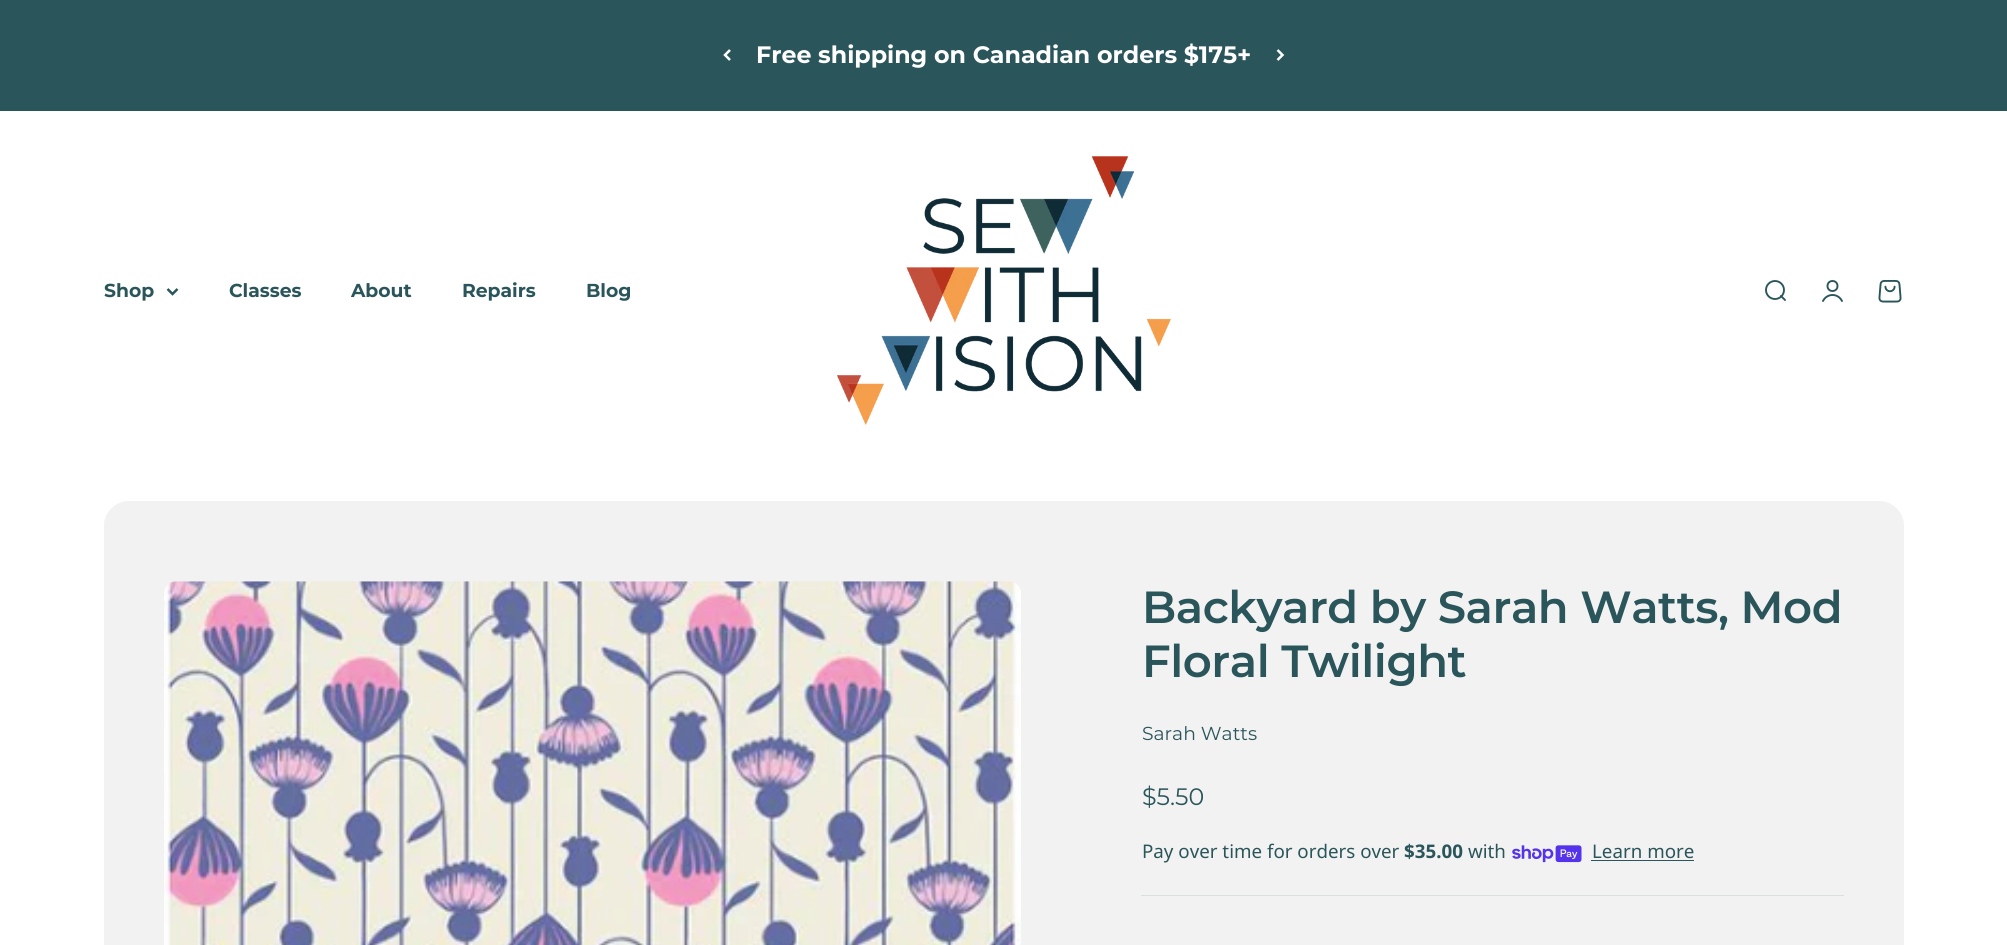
#include <cairo/cairo.h>
#include <math.h>
#include <stddef.h>

static cairo_t *cr;

static void use_color(int r, int g, int b) {
  cairo_set_source_rgb(cr, r / 255.0, g / 255.0, b / 255.0);
}

static void text(double x, double y, const char *s, const char *family, double size, int italic, int bold, int r, int g, int b) {
  cairo_select_font_face(cr, family, italic ? CAIRO_FONT_SLANT_ITALIC : CAIRO_FONT_SLANT_NORMAL,
    bold ? CAIRO_FONT_WEIGHT_BOLD : CAIRO_FONT_WEIGHT_NORMAL);
  cairo_set_font_size(cr, size);
  use_color(r, g, b);
  cairo_move_to(cr, x, y);
  cairo_show_text(cr, s);
}

static void spaced_text(double x, double y, const char *s, double letter, double word) {
  cairo_move_to(cr, x, y);
  while (*s) {
    char ch[5] = {0};
    int n = 0;
    do ch[n++] = *s++; while ((*s & 0xC0) == 0x80);
    cairo_show_text(cr, ch);
    cairo_rel_move_to(cr, letter + word * (*ch == ' '), 0);
  }
}

static void box(double x, double y, double w, double h, int r, int g, int b) {
  use_color(r, g, b);
  cairo_rectangle(cr, x, y, w, h);
  cairo_fill(cr);
}

static void round_rect(double x, double y, double w, double h, double r) {
  cairo_new_sub_path(cr);
  cairo_arc(cr, x + w - r, y + h - r, r, 0, M_PI / 2);
  cairo_arc(cr, x + r, y + h - r, r, M_PI / 2, M_PI);
  cairo_arc(cr, x + r, y + r, r, M_PI, 1.5 * M_PI);
  cairo_arc(cr, x + w - r, y + r, r, 1.5 * M_PI, 2 * M_PI);
  cairo_close_path(cr);
}

static void picture(const char *path, double x, double y, double w, double h) {
  cairo_surface_t *image = cairo_image_surface_create_from_png(path);
  cairo_save(cr);
  cairo_set_source_surface(cr, image, x, y);
  cairo_rectangle(cr, x, y, w, h);
  cairo_fill(cr);
  cairo_restore(cr);
  cairo_surface_destroy(image);
}

static void draw(void) {
  use_color(255, 255, 255);
  cairo_paint(cr);
  box(0, 0, 2007, 111, 42, 85, 90);
  cairo_new_path(cr);
  cairo_move_to(cr, 730, 50);
  cairo_line_to(cr, 725, 55);
  cairo_line_to(cr, 730, 60);
  use_color(255, 255, 255);
  cairo_set_line_width(cr, 2.5);
  cairo_stroke(cr);
  cairo_new_path(cr);
  cairo_move_to(cr, 1277.5, 60);
  cairo_line_to(cr, 1282.5, 55);
  cairo_line_to(cr, 1277.5, 50);
  cairo_stroke(cr);
  cairo_new_path(cr);
  cairo_move_to(cr, 167.5, 289);
  cairo_line_to(cr, 172.5, 294);
  cairo_line_to(cr, 177.5, 289);
  use_color(42, 85, 90);
  cairo_stroke(cr);
  picture("img_01.png", 837, 156, 334, 269);
  cairo_arc(cr, 1775, 290, 9, 0, 2 * M_PI);
  cairo_set_line_width(cr, 1.9);
  cairo_stroke(cr);
  cairo_new_path(cr);
  cairo_move_to(cr, 1781, 296);
  cairo_line_to(cr, 1785, 300);
  cairo_set_line_cap(cr, CAIRO_LINE_CAP_ROUND);
  cairo_set_line_join(cr, CAIRO_LINE_JOIN_ROUND);
  cairo_stroke(cr);
  cairo_arc(cr, 1832.5, 286, 5, 0, 2 * M_PI);
  cairo_set_line_cap(cr, CAIRO_LINE_CAP_BUTT);
  cairo_set_line_join(cr, CAIRO_LINE_JOIN_MITER);
  cairo_stroke(cr);
  cairo_new_path(cr);
  cairo_move_to(cr, 1823, 301);
  cairo_curve_to(cr, 1827, 293, 1838, 293, 1842, 301);
  cairo_set_line_cap(cr, CAIRO_LINE_CAP_ROUND);
  cairo_stroke(cr);
  picture("img_02.png", 1878, 280, 24, 23);
  use_color(242, 242, 242);
  round_rect(104, 501, 1800, 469, 25);
  cairo_fill(cr);
  picture("img_03.png", 164, 581, 857, 364);
  picture("img_04.png", 1512, 845, 70, 18);
  box(1591, 860, 103, 1, 42, 85, 90);
  box(1141, 895, 703, 1, 218, 223, 224);
  text(756, 63, "Free shipping on Canadian orders $175+", "Montserrat", 23.75, 0, 1, 255, 255, 255);
  text(104, 297, "Shop", "Montserrat", 18.75, 0, 1, 42, 85, 90);
  text(229, 297, "Classes", "Montserrat", 18.75, 0, 1, 42, 85, 90);
  text(351, 297, "About", "Montserrat", 18.75, 0, 1, 42, 85, 90);
  text(462, 297, "Repairs", "Montserrat", 18.75, 0, 1, 42, 85, 90);
  text(586, 297, "Blog", "Montserrat", 18.75, 0, 1, 42, 85, 90);
  cairo_select_font_face(cr, "Montserrat SemiBold", CAIRO_FONT_SLANT_NORMAL, CAIRO_FONT_WEIGHT_NORMAL);
  cairo_set_font_size(cr, 45);
  spaced_text(1142, 623, "Backyard by Sarah Watts, Mod", -0.45, 0);
  spaced_text(1142, 677, "Floral Twilight", -0.45, 0);
  text(1142, 740, "Sarah Watts", "Montserrat", 18.75, 0, 0, 42, 85, 90);
  text(1142, 805, "$5.50", "Montserrat", 23.75, 0, 0, 42, 85, 90);
  text(1142, 858, "Pay over time for orders over", "Noto Sans", 18.75, 0, 0, 42, 85, 90);
  text(1404, 858, "$35.00", "Noto Sans", 18.75, 0, 1, 42, 85, 90);
  text(1468, 858, "with", "Noto Sans", 18.75, 0, 0, 42, 85, 90);
  text(1592, 858, "Learn more", "Noto Sans", 18.75, 0, 0, 42, 85, 90);
}

int main(void) {
  cairo_surface_t *surface = cairo_image_surface_create(CAIRO_FORMAT_RGB24, 2007, 945);
  cr = cairo_create(surface);
  cairo_font_options_t *options = cairo_font_options_create();
  cairo_font_options_set_hint_metrics(options, CAIRO_HINT_METRICS_OFF);
  cairo_font_options_set_hint_style(options, CAIRO_HINT_STYLE_NONE);
  cairo_set_font_options(cr, options);
  cairo_set_miter_limit(cr, 4);
  draw();
  cairo_surface_write_to_png(surface, "out.png");
  cairo_font_options_destroy(options);
  cairo_destroy(cr);
  cairo_surface_destroy(surface);
  return 0;
}
